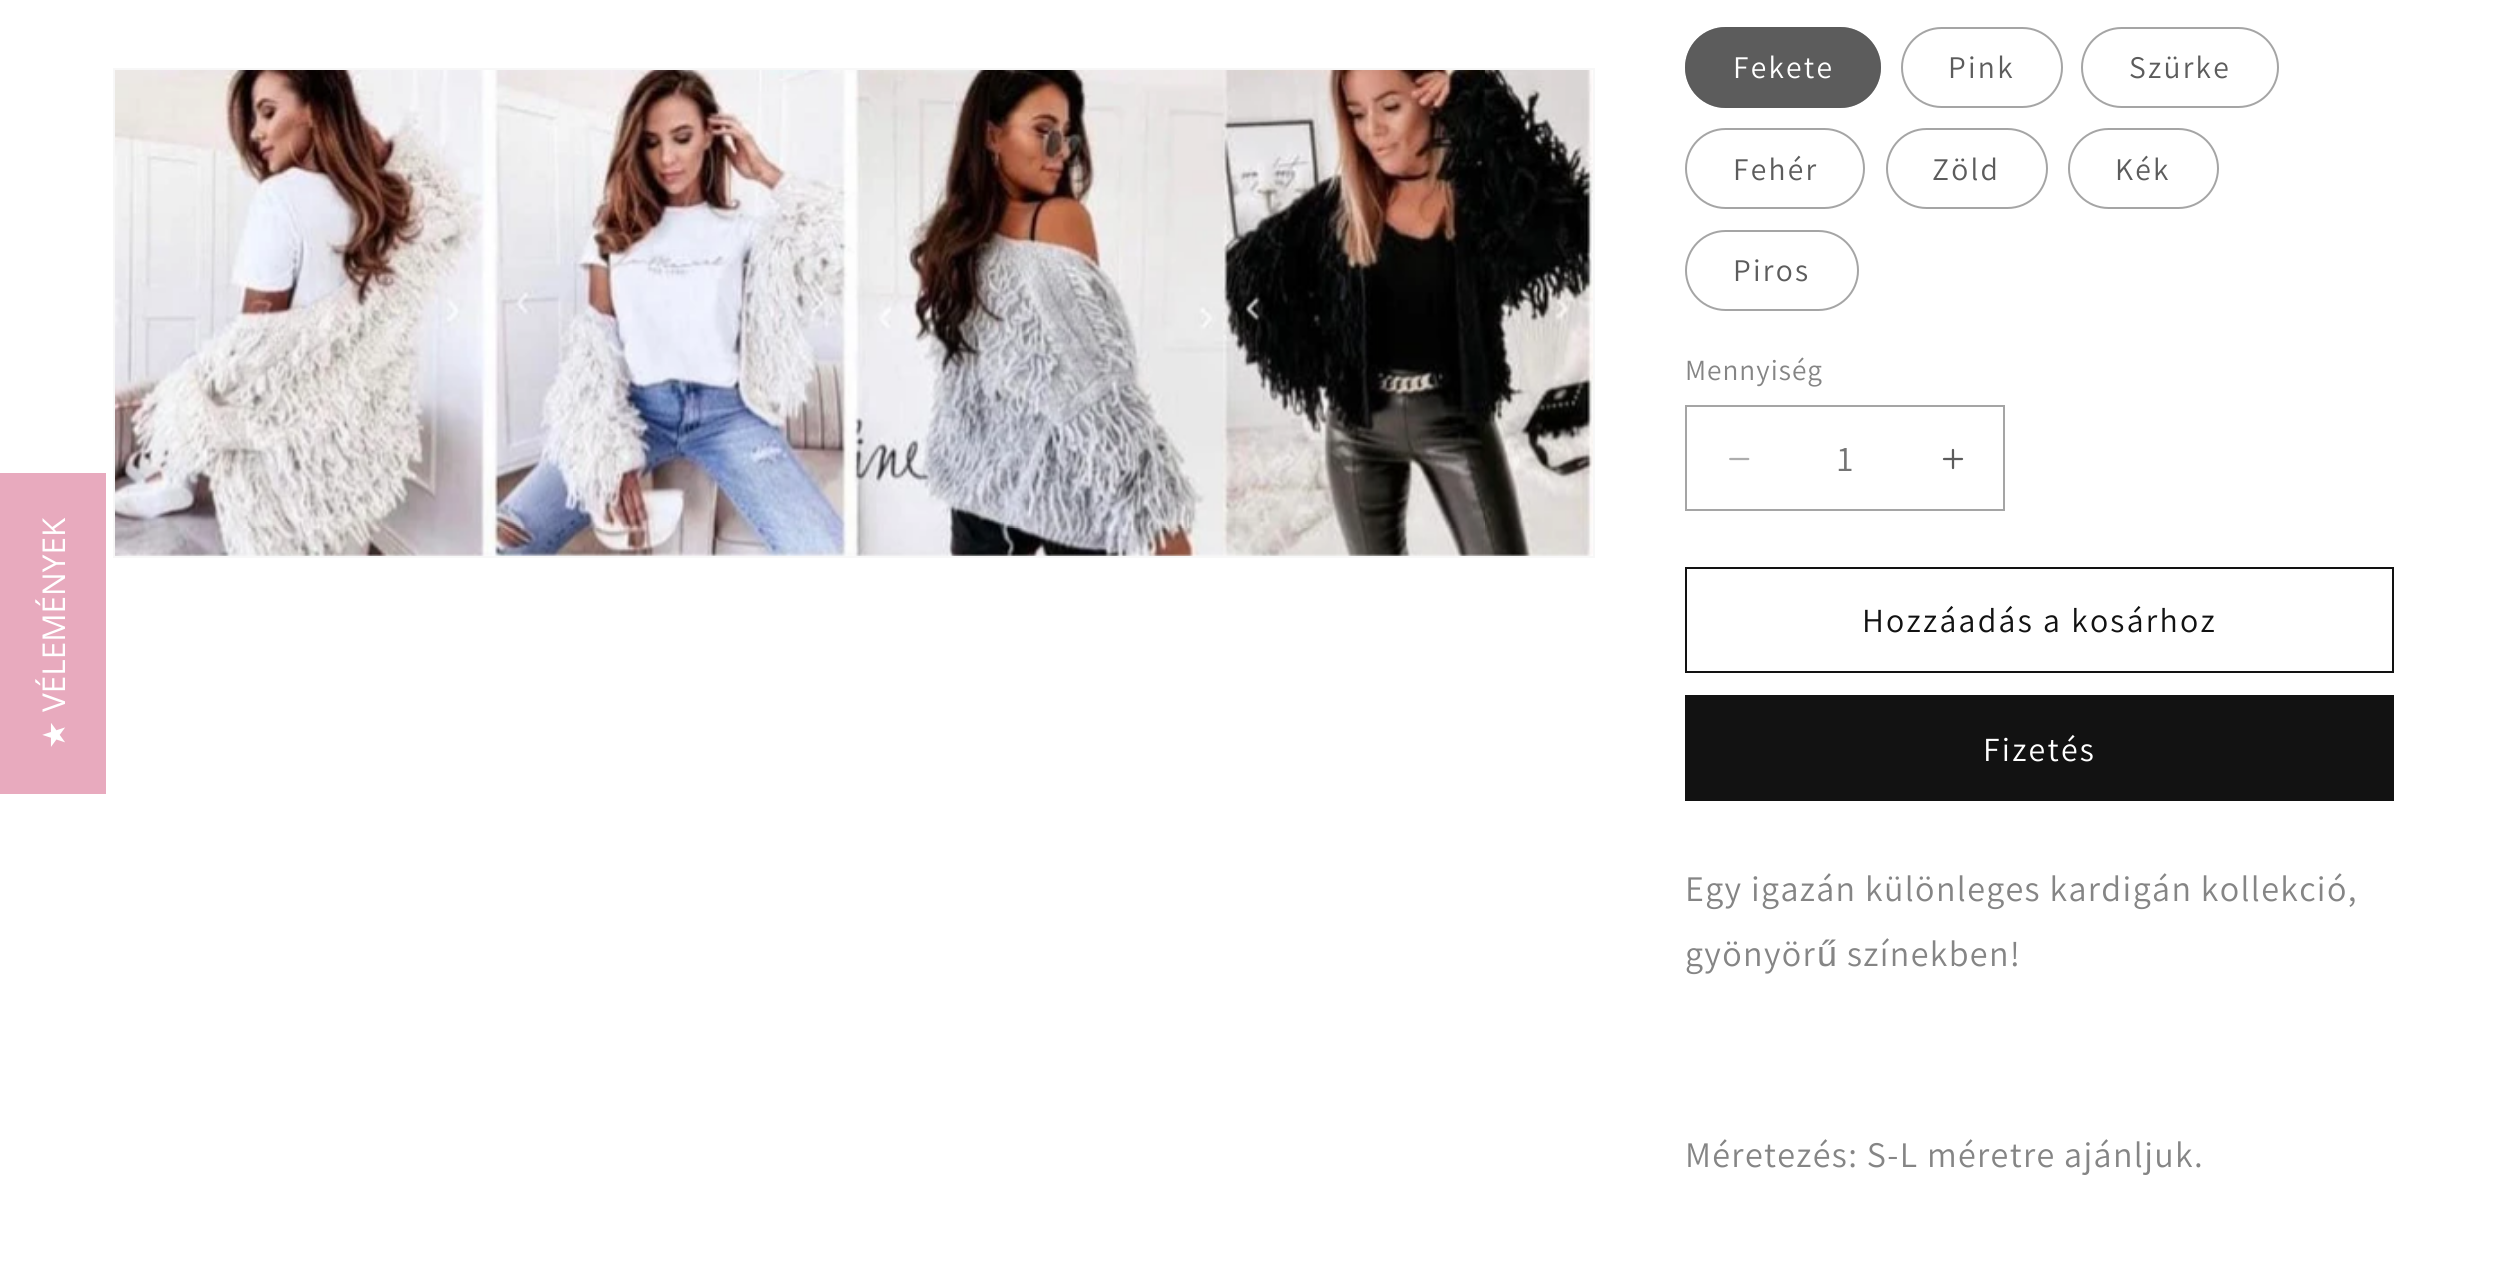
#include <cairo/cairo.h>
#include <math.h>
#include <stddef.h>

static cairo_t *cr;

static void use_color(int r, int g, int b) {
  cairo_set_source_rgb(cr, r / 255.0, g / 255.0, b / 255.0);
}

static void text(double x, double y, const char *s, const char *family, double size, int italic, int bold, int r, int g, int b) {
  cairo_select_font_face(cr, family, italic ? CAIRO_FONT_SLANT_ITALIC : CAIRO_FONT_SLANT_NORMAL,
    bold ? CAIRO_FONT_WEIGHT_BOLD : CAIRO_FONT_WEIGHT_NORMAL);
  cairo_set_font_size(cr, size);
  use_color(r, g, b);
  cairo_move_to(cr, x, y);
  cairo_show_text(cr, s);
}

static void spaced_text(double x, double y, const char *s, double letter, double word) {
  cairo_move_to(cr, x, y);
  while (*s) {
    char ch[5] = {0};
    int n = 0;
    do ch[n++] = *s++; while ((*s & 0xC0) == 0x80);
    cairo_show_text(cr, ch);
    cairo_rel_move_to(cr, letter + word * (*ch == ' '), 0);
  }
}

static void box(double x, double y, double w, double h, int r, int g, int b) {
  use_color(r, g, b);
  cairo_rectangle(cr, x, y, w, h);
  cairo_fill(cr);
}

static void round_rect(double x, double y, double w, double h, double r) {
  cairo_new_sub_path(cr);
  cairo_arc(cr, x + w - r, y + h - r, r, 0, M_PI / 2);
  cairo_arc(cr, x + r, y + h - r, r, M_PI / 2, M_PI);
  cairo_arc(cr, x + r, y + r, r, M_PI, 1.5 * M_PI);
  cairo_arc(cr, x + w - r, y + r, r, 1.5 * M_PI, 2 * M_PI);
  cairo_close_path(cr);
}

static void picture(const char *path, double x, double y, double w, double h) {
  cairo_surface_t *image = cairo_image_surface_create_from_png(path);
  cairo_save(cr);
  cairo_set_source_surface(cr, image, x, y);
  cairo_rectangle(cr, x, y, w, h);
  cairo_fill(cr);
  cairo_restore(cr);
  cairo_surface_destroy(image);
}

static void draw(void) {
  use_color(255, 255, 255);
  cairo_paint(cr);
  box(0, 473, 106, 321, 232, 170, 190);
  cairo_rectangle(cr, 114, 69, 1480, 488);
  use_color(247, 247, 247);
  cairo_stroke(cr);
  picture("img_01.png", 115, 70, 1478, 486);
  use_color(92, 92, 92);
  round_rect(1685, 27, 196, 81, 40.5);
  cairo_fill(cr);
  round_rect(1686, 28, 194, 79, 39.5);
  cairo_set_source_rgba(cr, 0.361, 0.361, 0.361, 0.55);
  cairo_stroke(cr);
  round_rect(1902, 28, 160, 79, 39.5);
  use_color(165, 165, 165);
  cairo_stroke(cr);
  round_rect(2082, 28, 196, 79, 39.5);
  cairo_stroke(cr);
  round_rect(1686, 129, 178, 79, 39.5);
  cairo_stroke(cr);
  round_rect(1887, 129, 160, 79, 39.5);
  cairo_stroke(cr);
  round_rect(2069, 129, 149, 79, 39.5);
  cairo_stroke(cr);
  round_rect(1686, 231, 172, 79, 39.5);
  cairo_stroke(cr);
  picture("img_02.png", 1729, 457, 21, 4);
  picture("img_03.png", 1942, 448, 22, 22);
  cairo_rectangle(cr, 1686, 406, 318, 104);
  cairo_stroke(cr);
  cairo_rectangle(cr, 1686, 568, 707, 104);
  use_color(18, 18, 18);
  cairo_stroke(cr);
  box(1685, 695, 709, 106, 18, 18, 18);
  cairo_save(cr);
  cairo_translate(cr, 65, 712);
  cairo_rotate(cr, -90 * M_PI / 180);
  text(0, 0, "VÉLEMÉNYEK", "Open Sans", 31.5, 0, 0, 255, 255, 255);
  cairo_restore(cr);
  cairo_save(cr);
  cairo_translate(cr, 65, 749);
  cairo_rotate(cr, -90 * M_PI / 180);
  text(0, 0, "★", "DejaVu Sans", 31.5, 0, 0, 255, 255, 255);
  cairo_restore(cr);
  cairo_select_font_face(cr, "Assistant", CAIRO_FONT_SLANT_NORMAL, CAIRO_FONT_WEIGHT_NORMAL);
  cairo_set_font_size(cr, 31.5);
  use_color(255, 255, 255);
  spaced_text(1733, 78, "Fekete", 2.25, 0);
  use_color(92, 92, 92);
  spaced_text(1948, 78, "Pink", 2.25, 0);
  spaced_text(2129, 78, "Szürke", 2.25, 0);
  spaced_text(1733, 180, "Fehér", 2.25, 0);
  spaced_text(1932, 180, "Zöld", 2.25, 0);
  spaced_text(2115, 180, "Kék", 2.25, 0);
  spaced_text(1733, 281, "Piros", 2.25, 0);
  cairo_set_font_size(cr, 29.25);
  use_color(133, 133, 133);
  spaced_text(1685, 380, "Mennyiség", 1, 0);
  text(1837, 471, "1", "Assistant", 36, 0, 0, 116, 116, 116);
  cairo_set_font_size(cr, 33.75);
  use_color(18, 18, 18);
  spaced_text(1862, 632, "Hozzáadás a kosárhoz", 2.25, 0);
  use_color(255, 255, 255);
  spaced_text(1983, 761, "Fizetés", 2.25, 0);
  cairo_set_font_size(cr, 36);
  use_color(133, 133, 133);
  spaced_text(1685, 901, "Egy igazán különleges kardigán kollekció,", 1.35, 0);
  spaced_text(1685, 966, "gyönyör", 1.35, 0);
  cairo_select_font_face(cr, "Liberation Sans", CAIRO_FONT_SLANT_NORMAL, CAIRO_FONT_WEIGHT_NORMAL);
  spaced_text(1817, 966, "ű", 1.35, 0);
  cairo_select_font_face(cr, "Assistant", CAIRO_FONT_SLANT_NORMAL, CAIRO_FONT_WEIGHT_NORMAL);
  spaced_text(1847, 966, "színekben!", 1.35, 0);
  spaced_text(1685, 1167, "Méretezés: S-L méretre ajánljuk.", 1.35, 0);
}

int main(void) {
  cairo_surface_t *surface = cairo_image_surface_create(CAIRO_FORMAT_RGB24, 2506, 1265);
  cr = cairo_create(surface);
  cairo_font_options_t *options = cairo_font_options_create();
  cairo_font_options_set_hint_metrics(options, CAIRO_HINT_METRICS_OFF);
  cairo_font_options_set_hint_style(options, CAIRO_HINT_STYLE_NONE);
  cairo_set_font_options(cr, options);
  cairo_set_miter_limit(cr, 4);
  draw();
  cairo_surface_write_to_png(surface, "out.png");
  cairo_font_options_destroy(options);
  cairo_destroy(cr);
  cairo_surface_destroy(surface);
  return 0;
}
